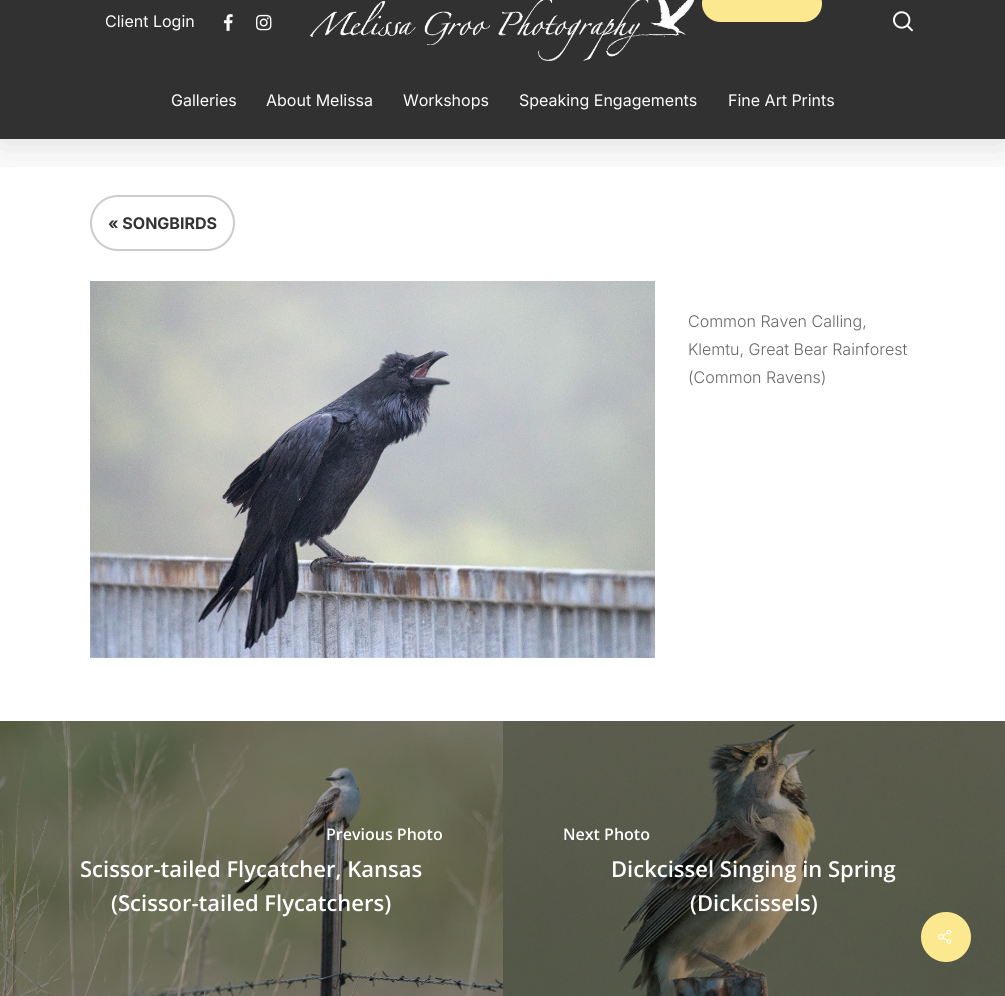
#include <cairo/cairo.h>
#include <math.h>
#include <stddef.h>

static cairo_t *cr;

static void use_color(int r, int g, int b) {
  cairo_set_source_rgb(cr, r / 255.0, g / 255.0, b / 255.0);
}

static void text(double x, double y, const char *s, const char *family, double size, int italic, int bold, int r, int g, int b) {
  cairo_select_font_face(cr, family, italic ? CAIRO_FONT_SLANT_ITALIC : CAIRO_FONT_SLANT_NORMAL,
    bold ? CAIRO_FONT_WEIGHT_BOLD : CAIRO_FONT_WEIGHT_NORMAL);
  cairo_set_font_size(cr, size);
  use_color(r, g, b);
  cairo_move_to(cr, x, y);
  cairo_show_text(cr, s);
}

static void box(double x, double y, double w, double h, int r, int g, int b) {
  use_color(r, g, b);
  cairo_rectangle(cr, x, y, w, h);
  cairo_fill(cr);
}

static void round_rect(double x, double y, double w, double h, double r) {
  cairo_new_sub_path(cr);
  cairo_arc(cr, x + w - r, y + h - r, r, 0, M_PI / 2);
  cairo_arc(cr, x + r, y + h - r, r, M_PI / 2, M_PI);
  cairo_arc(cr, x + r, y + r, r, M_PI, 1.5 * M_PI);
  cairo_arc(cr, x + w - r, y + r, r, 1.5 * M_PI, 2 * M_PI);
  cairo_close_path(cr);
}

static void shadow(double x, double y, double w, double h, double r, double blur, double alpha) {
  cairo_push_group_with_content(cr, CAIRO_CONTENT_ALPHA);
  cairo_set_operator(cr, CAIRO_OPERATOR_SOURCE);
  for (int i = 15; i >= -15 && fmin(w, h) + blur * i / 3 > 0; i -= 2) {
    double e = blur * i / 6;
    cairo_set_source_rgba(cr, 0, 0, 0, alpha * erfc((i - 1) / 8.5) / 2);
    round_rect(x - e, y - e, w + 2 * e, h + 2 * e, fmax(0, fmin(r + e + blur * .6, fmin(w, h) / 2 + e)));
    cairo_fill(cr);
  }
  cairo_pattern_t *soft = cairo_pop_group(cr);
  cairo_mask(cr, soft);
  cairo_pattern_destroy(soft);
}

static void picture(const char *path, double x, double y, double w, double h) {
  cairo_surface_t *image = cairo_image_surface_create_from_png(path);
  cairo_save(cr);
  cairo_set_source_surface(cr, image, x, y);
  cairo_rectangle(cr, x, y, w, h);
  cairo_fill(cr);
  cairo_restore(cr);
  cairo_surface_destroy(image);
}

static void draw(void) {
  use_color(255, 255, 255);
  cairo_paint(cr);
  box(0, 0, 1005, 139, 50, 49, 49);
  round_rect(91, 196, 143, 54, 27);
  use_color(204, 204, 204);
  cairo_stroke(cr);
  cairo_save(cr);
  cairo_rectangle(cr, 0, 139, 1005, 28);
  cairo_clip(cr);
  use_color(0, 0, 0);
  shadow(0, -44, 1005, 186, 0, 22.5, 0.15);
  cairo_restore(cr);
  picture("img_01.png", 223, 14, 10, 17);
  picture("img_02.png", 256, 14, 16, 17);
  picture("img_03.png", 310, 0, 384, 61);
  use_color(252, 233, 143);
  round_rect(702, -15, 120, 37, 18.5);
  cairo_fill(cr);
  picture("img_04.png", 893, 11, 20, 21);
  picture("img_05.png", 90, 281, 565, 377);
  picture("img_06.png", 0, 721, 503, 275);
  picture("img_07.png", 503, 721, 502, 275);
  cairo_arc(cr, 946, 937, 25, 0, 2 * M_PI);
  cairo_fill(cr);
  picture("img_08.png", 938, 929, 14, 15);
  text(105, 27, "Client Login", "Inter", 16, 0, 0, 255, 255, 255);
  text(171, 106, "Galleries", "Inter", 16, 0, 0, 255, 255, 255);
  text(266, 106, "About Melissa", "Inter", 16, 0, 0, 255, 255, 255);
  text(403, 106, "Workshops", "Inter", 16, 0, 0, 255, 255, 255);
  text(519, 106, "Speaking Engagements", "Inter", 16, 0, 0, 255, 255, 255);
  text(728, 106, "Fine Art Prints", "Inter", 16, 0, 0, 255, 255, 255);
  text(108, 229, "« SONGBIRDS", "Inter", 16, 0, 1, 51, 51, 51);
  text(688, 327, "Common Raven Calling,", "Inter Light", 16, 0, 0, 103, 103, 103);
  text(688, 355, "Klemtu, Great Bear Rainforest", "Inter Light", 16, 0, 0, 103, 103, 103);
  text(688, 383, "(Common Ravens)", "Inter Light", 16, 0, 0, 103, 103, 103);
  text(326, 840, "Previous Photo", "Open Sans SemiBold", 16, 0, 0, 255, 255, 255);
  text(80, 877, "Scissor-tailed Flycatcher, Kansas", "Open Sans SemiBold", 22, 0, 0, 255, 255, 255);
  text(111, 911, "(Scissor-tailed Flycatchers)", "Open Sans SemiBold", 22, 0, 0, 255, 255, 255);
  text(563, 840, "Next Photo", "Open Sans SemiBold", 16, 0, 0, 255, 255, 255);
  text(611, 877, "Dickcissel Singing in Spring", "Open Sans SemiBold", 22, 0, 0, 255, 255, 255);
  text(690, 911, "(Dickcissels)", "Open Sans SemiBold", 22, 0, 0, 255, 255, 255);
}

int main(void) {
  cairo_surface_t *surface = cairo_image_surface_create(CAIRO_FORMAT_RGB24, 1005, 996);
  cr = cairo_create(surface);
  cairo_font_options_t *options = cairo_font_options_create();
  cairo_font_options_set_hint_metrics(options, CAIRO_HINT_METRICS_OFF);
  cairo_font_options_set_hint_style(options, CAIRO_HINT_STYLE_NONE);
  cairo_set_font_options(cr, options);
  cairo_set_miter_limit(cr, 4);
  draw();
  cairo_surface_write_to_png(surface, "out.png");
  cairo_font_options_destroy(options);
  cairo_destroy(cr);
  cairo_surface_destroy(surface);
  return 0;
}
